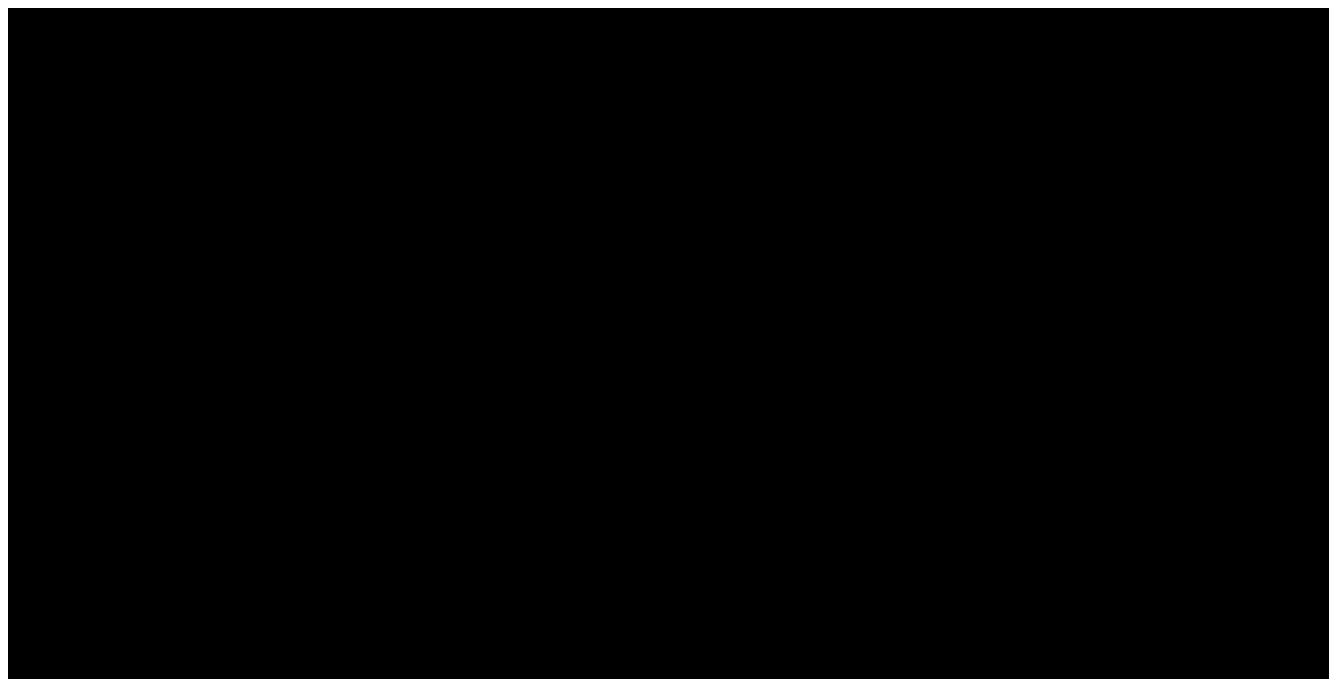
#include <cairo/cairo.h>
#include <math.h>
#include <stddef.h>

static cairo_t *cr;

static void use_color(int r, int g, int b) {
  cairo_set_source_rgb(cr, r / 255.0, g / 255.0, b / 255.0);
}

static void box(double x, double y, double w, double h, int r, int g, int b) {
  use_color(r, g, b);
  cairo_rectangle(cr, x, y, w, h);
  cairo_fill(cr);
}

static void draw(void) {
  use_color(255, 255, 255);
  cairo_paint(cr);
  box(8, 8, 1321, 671, 0, 0, 0);
}

int main(void) {
  cairo_surface_t *surface = cairo_image_surface_create(CAIRO_FORMAT_RGB24, 1329, 679);
  cr = cairo_create(surface);
  cairo_font_options_t *options = cairo_font_options_create();
  cairo_font_options_set_hint_metrics(options, CAIRO_HINT_METRICS_OFF);
  cairo_font_options_set_hint_style(options, CAIRO_HINT_STYLE_NONE);
  cairo_set_font_options(cr, options);
  cairo_set_miter_limit(cr, 4);
  draw();
  cairo_surface_write_to_png(surface, "out.png");
  cairo_font_options_destroy(options);
  cairo_destroy(cr);
  cairo_surface_destroy(surface);
  return 0;
}
